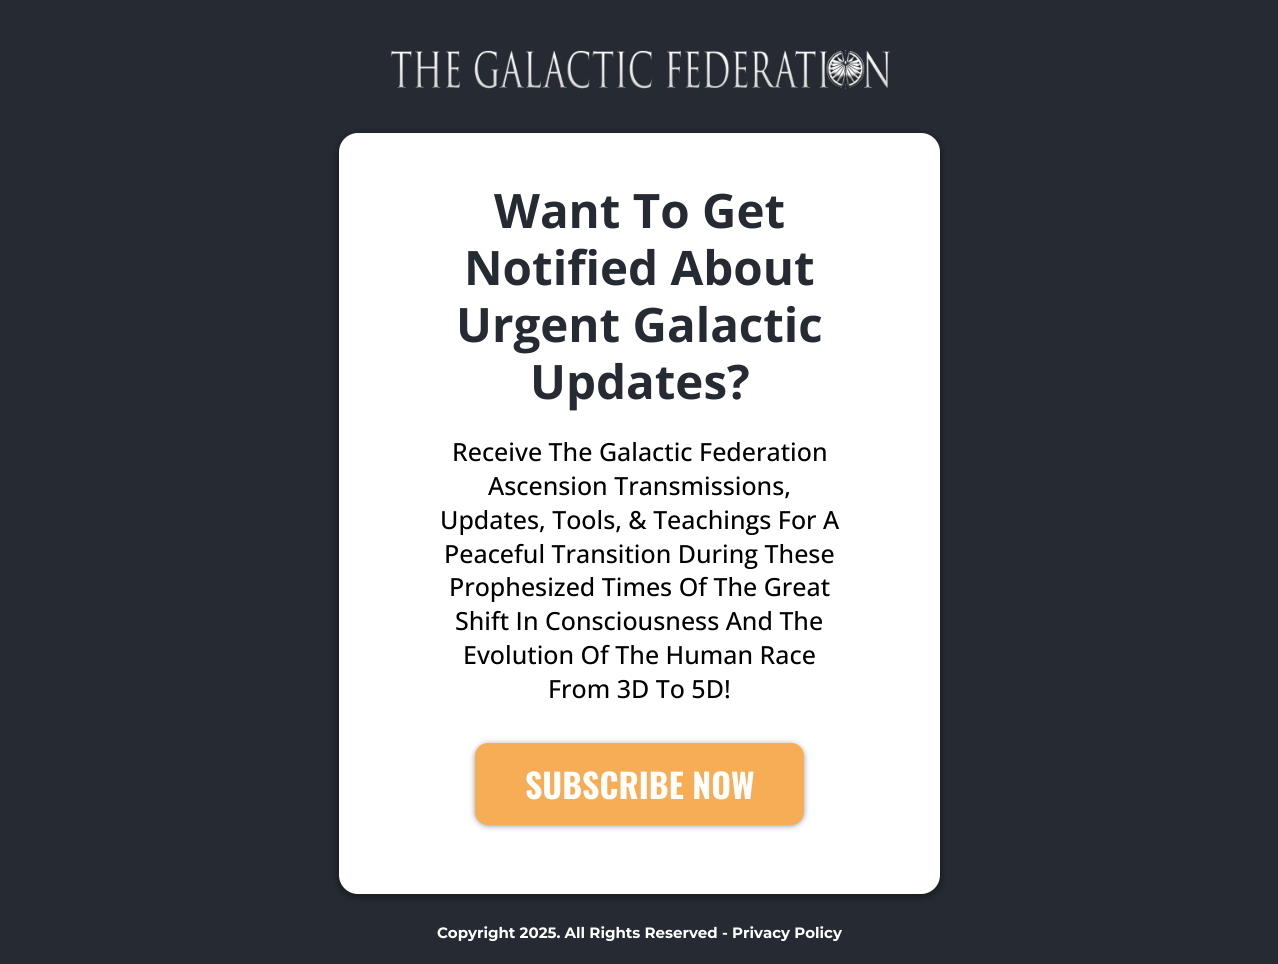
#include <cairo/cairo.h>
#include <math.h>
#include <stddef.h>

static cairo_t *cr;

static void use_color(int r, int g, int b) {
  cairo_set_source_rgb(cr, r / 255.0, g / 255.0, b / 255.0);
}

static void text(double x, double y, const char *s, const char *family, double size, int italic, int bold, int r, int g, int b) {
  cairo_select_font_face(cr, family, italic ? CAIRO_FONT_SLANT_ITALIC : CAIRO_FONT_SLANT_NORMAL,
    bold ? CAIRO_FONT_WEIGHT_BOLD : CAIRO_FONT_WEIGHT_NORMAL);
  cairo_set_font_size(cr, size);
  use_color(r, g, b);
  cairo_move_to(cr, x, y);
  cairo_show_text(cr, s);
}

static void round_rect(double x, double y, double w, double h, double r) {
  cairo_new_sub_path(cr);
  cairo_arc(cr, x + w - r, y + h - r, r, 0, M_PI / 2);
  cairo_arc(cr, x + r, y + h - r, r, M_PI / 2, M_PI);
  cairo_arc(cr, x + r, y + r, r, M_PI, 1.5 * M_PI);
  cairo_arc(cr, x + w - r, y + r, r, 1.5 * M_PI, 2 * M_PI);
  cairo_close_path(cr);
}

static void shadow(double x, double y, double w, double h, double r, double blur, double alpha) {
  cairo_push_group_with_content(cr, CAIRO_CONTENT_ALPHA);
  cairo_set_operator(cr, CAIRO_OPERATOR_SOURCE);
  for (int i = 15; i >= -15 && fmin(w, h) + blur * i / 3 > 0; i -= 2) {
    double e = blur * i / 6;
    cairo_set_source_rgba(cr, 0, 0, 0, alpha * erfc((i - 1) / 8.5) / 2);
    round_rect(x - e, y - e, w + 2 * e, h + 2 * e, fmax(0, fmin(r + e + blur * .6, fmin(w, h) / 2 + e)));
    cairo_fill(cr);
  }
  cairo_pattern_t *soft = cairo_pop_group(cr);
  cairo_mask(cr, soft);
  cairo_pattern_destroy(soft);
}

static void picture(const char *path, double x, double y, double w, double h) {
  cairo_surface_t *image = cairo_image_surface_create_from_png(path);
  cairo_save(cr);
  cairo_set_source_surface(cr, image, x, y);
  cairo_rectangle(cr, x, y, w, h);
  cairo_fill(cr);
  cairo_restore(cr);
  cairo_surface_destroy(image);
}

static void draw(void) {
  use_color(38, 43, 51);
  cairo_paint(cr);
  picture("img_01.png", 390, 50, 500, 39);
  use_color(0, 0, 0);
  shadow(336, 133, 607, 766, 21, 3, 0.3);
  use_color(255, 255, 255);
  round_rect(339, 133, 601, 761, 19);
  cairo_fill(cr);
  use_color(0, 0, 0);
  shadow(475, 744, 329, 82, 13, 3, 0.4);
  use_color(246, 173, 85);
  round_rect(475, 743, 329, 82, 13);
  cairo_fill(cr);
  text(494, 228, "Want To Get", "Open Sans", 47.5, 0, 1, 38, 43, 51);
  text(464, 285, "Notified About", "Open Sans", 47.5, 0, 1, 38, 43, 51);
  text(456, 342, "Urgent Galactic", "Open Sans", 47.5, 0, 1, 38, 43, 51);
  text(530, 399, "Updates?", "Open Sans", 47.5, 0, 1, 38, 43, 51);
  text(452, 461, "Receive The Galactic Federation", "Open Sans Medium", 25, 0, 0, 0, 0, 0);
  text(488, 495, "Ascension Transmissions,", "Open Sans Medium", 25, 0, 0, 0, 0, 0);
  text(440, 529, "Updates, Tools, & Teachings For A", "Open Sans Medium", 25, 0, 0, 0, 0, 0);
  text(444, 563, "Peaceful Transition During These", "Open Sans Medium", 25, 0, 0, 0, 0, 0);
  text(449, 596, "Prophesized Times Of The Great", "Open Sans Medium", 25, 0, 0, 0, 0, 0);
  text(455, 630, "Shift In Consciousness And The", "Open Sans Medium", 25, 0, 0, 0, 0, 0);
  text(463, 664, "Evolution Of The Human Race", "Open Sans Medium", 25, 0, 0, 0, 0, 0);
  text(548, 698, "From 3D To 5D!", "Open Sans Medium", 25, 0, 0, 0, 0, 0);
  text(525, 799, "SUBSCRIBE NOW", "Oswald", 33.75, 0, 1, 255, 255, 255);
  text(437, 938, "Copyright 2025. All Rights Reserved - Privacy Policy", "Montserrat", 15, 0, 1, 255, 255, 255);
}

int main(void) {
  cairo_surface_t *surface = cairo_image_surface_create(CAIRO_FORMAT_RGB24, 1278, 964);
  cr = cairo_create(surface);
  cairo_font_options_t *options = cairo_font_options_create();
  cairo_font_options_set_hint_metrics(options, CAIRO_HINT_METRICS_OFF);
  cairo_font_options_set_hint_style(options, CAIRO_HINT_STYLE_NONE);
  cairo_set_font_options(cr, options);
  cairo_set_miter_limit(cr, 4);
  draw();
  cairo_surface_write_to_png(surface, "out.png");
  cairo_font_options_destroy(options);
  cairo_destroy(cr);
  cairo_surface_destroy(surface);
  return 0;
}
